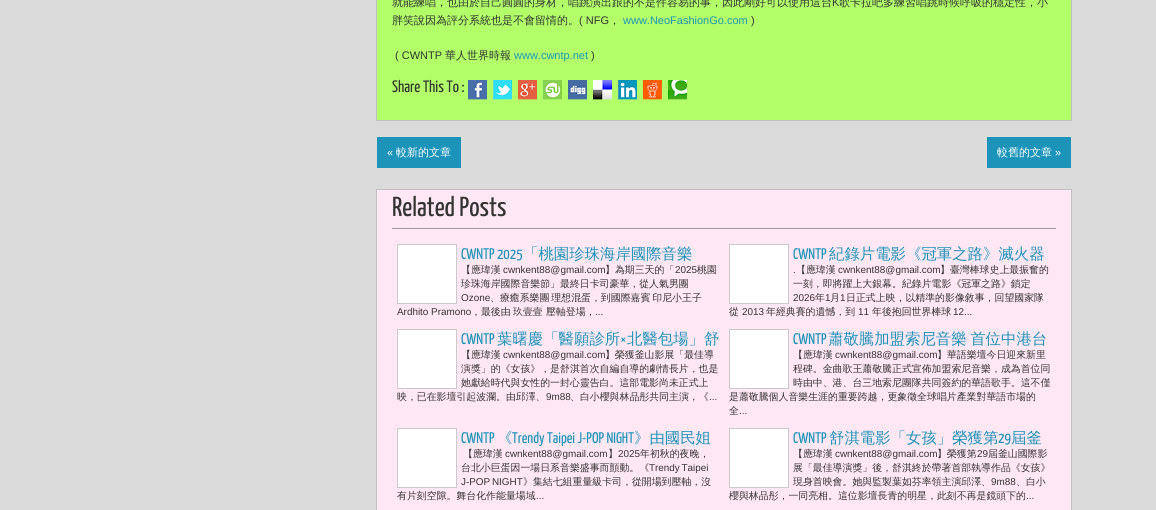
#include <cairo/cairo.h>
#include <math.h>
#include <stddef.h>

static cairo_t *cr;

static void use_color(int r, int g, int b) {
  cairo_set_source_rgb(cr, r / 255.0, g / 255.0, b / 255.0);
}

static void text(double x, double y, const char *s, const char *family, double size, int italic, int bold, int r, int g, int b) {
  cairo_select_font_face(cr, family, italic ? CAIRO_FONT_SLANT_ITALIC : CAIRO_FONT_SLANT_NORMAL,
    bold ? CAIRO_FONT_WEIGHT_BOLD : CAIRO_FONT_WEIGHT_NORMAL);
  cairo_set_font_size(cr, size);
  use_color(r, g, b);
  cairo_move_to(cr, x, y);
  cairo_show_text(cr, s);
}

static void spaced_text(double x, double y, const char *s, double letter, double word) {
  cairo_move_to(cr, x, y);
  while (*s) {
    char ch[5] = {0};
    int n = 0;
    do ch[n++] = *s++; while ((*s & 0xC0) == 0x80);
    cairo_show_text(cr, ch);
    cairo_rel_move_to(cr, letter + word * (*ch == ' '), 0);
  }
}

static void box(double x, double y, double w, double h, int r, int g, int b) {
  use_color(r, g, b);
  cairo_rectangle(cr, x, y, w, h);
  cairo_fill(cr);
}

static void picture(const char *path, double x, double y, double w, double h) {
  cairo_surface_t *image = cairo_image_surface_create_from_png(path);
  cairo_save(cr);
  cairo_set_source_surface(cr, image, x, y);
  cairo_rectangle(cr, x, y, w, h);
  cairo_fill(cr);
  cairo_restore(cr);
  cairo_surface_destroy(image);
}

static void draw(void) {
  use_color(219, 219, 219);
  cairo_paint(cr);
  use_color(178, 255, 105);
  cairo_rectangle(cr, 376.5, -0.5, 695, 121);
  cairo_fill_preserve(cr);
  use_color(192, 192, 192);
  cairo_set_line_width(cr, 1);
  cairo_stroke(cr);
  picture("img_01.png", 468, 80, 19, 20);
  picture("img_02.png", 493, 80, 19, 20);
  picture("img_03.png", 518, 80, 19, 20);
  picture("img_04.png", 543, 80, 19, 20);
  picture("img_05.png", 568, 80, 19, 20);
  picture("img_06.png", 593, 80, 19, 20);
  picture("img_07.png", 618, 80, 19, 20);
  picture("img_08.png", 643, 80, 19, 20);
  picture("img_09.png", 668, 80, 19, 20);
  box(377, 137, 84, 31, 28, 148, 185);
  box(987, 137, 84, 31, 28, 148, 185);
  use_color(255, 231, 243);
  cairo_rectangle(cr, 376.5, 189.5, 695, 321);
  cairo_fill_preserve(cr);
  use_color(192, 192, 192);
  cairo_stroke(cr);
  box(392, 228, 664, 1, 155, 155, 155);
  use_color(255, 255, 255);
  cairo_rectangle(cr, 397.5, 244.5, 59, 59);
  cairo_fill_preserve(cr);
  use_color(202, 202, 202);
  cairo_stroke(cr);
  use_color(255, 255, 255);
  cairo_rectangle(cr, 729.5, 244.5, 59, 59);
  cairo_fill_preserve(cr);
  use_color(202, 202, 202);
  cairo_stroke(cr);
  use_color(255, 255, 255);
  cairo_rectangle(cr, 397.5, 329.5, 59, 59);
  cairo_fill_preserve(cr);
  use_color(202, 202, 202);
  cairo_stroke(cr);
  use_color(255, 255, 255);
  cairo_rectangle(cr, 729.5, 329.5, 59, 59);
  cairo_fill_preserve(cr);
  use_color(202, 202, 202);
  cairo_stroke(cr);
  use_color(255, 255, 255);
  cairo_rectangle(cr, 397.5, 428.5, 59, 59);
  cairo_fill_preserve(cr);
  use_color(202, 202, 202);
  cairo_stroke(cr);
  use_color(255, 255, 255);
  cairo_rectangle(cr, 729.5, 428.5, 59, 59);
  cairo_fill_preserve(cr);
  use_color(202, 202, 202);
  cairo_stroke(cr);
  text(392, 6, "就能練唱，也由於自己圓圓的身材，唱跳演出跟的不是件容易的事，因此剛好可以使用這台", "WenQuanYi Zen Hei Medium", 11, 0, 0, 51, 51, 51);
  text(832, 6, "K", "Liberation Sans", 11, 0, 0, 51, 51, 51);
  text(839, 6, "歌卡拉吧多練習唱跳時候呼吸的穩定性，小", "WenQuanYi Zen Hei Medium", 11, 0, 0, 51, 51, 51);
  text(392, 24, "胖笑說因為評分系統也是不會留情的。", "WenQuanYi Zen Hei Medium", 11, 0, 0, 51, 51, 51);
  text(579, 24, "( NFG", "Liberation Sans", 11, 0, 0, 51, 51, 51);
  text(609, 24, "，", "WenQuanYi Zen Hei Medium", 11, 0, 0, 51, 51, 51);
  text(623, 24, "www.NeoFashionGo.com", "Liberation Sans", 11, 0, 0, 28, 148, 185);
  text(751, 24, ")", "Liberation Sans", 11, 0, 0, 51, 51, 51);
  text(395, 59, "( CWNTP", "Liberation Sans", 11, 0, 0, 51, 51, 51);
  text(445, 59, "華人世界時報", "WenQuanYi Zen Hei Medium", 11, 0, 0, 51, 51, 51);
  text(514, 59, "www.cwntp.net", "Liberation Sans", 11, 0, 0, 28, 148, 185);
  text(591, 59, ")", "Liberation Sans", 11, 0, 0, 51, 51, 51);
  text(392, 92, "Share This To :", "Yanone Kaffeesatz ExtraLight", 16.5, 0, 0, 51, 51, 51);
  text(387, 156, "«", "Liberation Sans", 11, 0, 0, 255, 255, 255);
  text(396, 156, "較新的文章", "WenQuanYi Zen Hei Medium", 11, 0, 0, 255, 255, 255);
  text(997, 156, "較舊的文章", "WenQuanYi Zen Hei Medium", 11, 0, 0, 255, 255, 255);
  text(1055, 156, "»", "Liberation Sans", 11, 0, 0, 255, 255, 255);
  text(392, 216, "Related Posts", "Yanone Kaffeesatz ExtraLight", 27.5, 0, 0, 51, 51, 51);
  text(461, 259, "CWNTP 2025", "Yanone Kaffeesatz ExtraLight", 15.4, 0, 0, 28, 148, 185);
  text(523, 259, "「桃園珍珠海岸國際音樂", "WenQuanYi Zen Hei Medium", 15.4, 0, 0, 28, 148, 185);
  text(461, 273, "【應瑋漢", "WenQuanYi Zen Hei Medium", 9.9, 0, 0, 51, 51, 51);
  text(503, 273, "cwnkent88@gmail.com", "Liberation Sans", 9.9, 0, 0, 51, 51, 51);
  text(605, 273, "】為期三天的「", "WenQuanYi Zen Hei Medium", 9.9, 0, 0, 51, 51, 51);
  text(675, 273, "2025", "Liberation Sans", 9.9, 0, 0, 51, 51, 51);
  text(697, 273, "桃園", "WenQuanYi Zen Hei Medium", 9.9, 0, 0, 51, 51, 51);
  text(461, 287, "珍珠海岸國際音樂節」最終日卡司豪華，從人氣男團", "WenQuanYi Zen Hei Medium", 9.9, 0, 0, 51, 51, 51);
  text(461, 301, "Ozone", "Liberation Sans", 9.9, 0, 0, 51, 51, 51);
  cairo_select_font_face(cr, "WenQuanYi Zen Hei Medium", CAIRO_FONT_SLANT_NORMAL, CAIRO_FONT_WEIGHT_NORMAL);
  spaced_text(490, 301, "、療癒系樂團 理想混蛋，到國際嘉賓 印尼小王子", 0, -1);
  text(397, 315, "Ardhito Pramono", "Liberation Sans", 9.9, 0, 0, 51, 51, 51);
  text(471, 315, "，最後由", "WenQuanYi Zen Hei Medium", 9.9, 0, 0, 51, 51, 51);
  text(513, 315, "玖壹壹", "WenQuanYi Zen Hei Medium", 9.9, 0, 0, 51, 51, 51);
  text(546, 315, "壓軸登場，", "WenQuanYi Zen Hei Medium", 9.9, 0, 0, 51, 51, 51);
  text(595, 315, "...", "Liberation Sans", 9.9, 0, 0, 51, 51, 51);
  text(793, 259, "CWNTP", "Yanone Kaffeesatz ExtraLight", 15.4, 0, 0, 28, 148, 185);
  text(829, 259, "紀錄片電影《冠軍之路》滅火器", "WenQuanYi Zen Hei Medium", 15.4, 0, 0, 28, 148, 185);
  text(793, 273, ".", "Liberation Sans", 9.9, 0, 0, 51, 51, 51);
  text(796, 273, "【應瑋漢", "WenQuanYi Zen Hei Medium", 9.9, 0, 0, 51, 51, 51);
  text(838, 273, "cwnkent88@gmail.com", "Liberation Sans", 9.9, 0, 0, 51, 51, 51);
  text(940, 273, "】臺灣棒球史上最振奮的", "WenQuanYi Zen Hei Medium", 9.9, 0, 0, 51, 51, 51);
  text(793, 287, "一刻，即將躍上大銀幕。紀錄片電影《冠軍之路》鎖定", "WenQuanYi Zen Hei Medium", 9.9, 0, 0, 51, 51, 51);
  text(793, 301, "2026", "Liberation Sans", 9.9, 0, 0, 51, 51, 51);
  text(815, 301, "年", "WenQuanYi Zen Hei Medium", 9.9, 0, 0, 51, 51, 51);
  text(825, 301, "1", "Liberation Sans", 9.9, 0, 0, 51, 51, 51);
  text(830, 301, "月", "WenQuanYi Zen Hei Medium", 9.9, 0, 0, 51, 51, 51);
  text(840, 301, "1", "Liberation Sans", 9.9, 0, 0, 51, 51, 51);
  text(846, 301, "日正式上映，以精準的影像敘事，回望國家隊", "WenQuanYi Zen Hei Medium", 9.9, 0, 0, 51, 51, 51);
  text(729, 315, "從", "WenQuanYi Zen Hei Medium", 9.9, 0, 0, 51, 51, 51);
  text(742, 315, "2013", "Liberation Sans", 9.9, 0, 0, 51, 51, 51);
  text(766, 315, "年經典賽的遺憾，到", "WenQuanYi Zen Hei Medium", 9.9, 0, 0, 51, 51, 51);
  text(858, 315, "11", "Liberation Sans", 9.9, 0, 0, 51, 51, 51);
  text(872, 315, "年後抱回世界棒球", "WenQuanYi Zen Hei Medium", 9.9, 0, 0, 51, 51, 51);
  text(953, 315, "12...", "Liberation Sans", 9.9, 0, 0, 51, 51, 51);
  text(461, 344, "CWNTP", "Yanone Kaffeesatz ExtraLight", 15.4, 0, 0, 28, 148, 185);
  text(497, 344, "葉曙慶「醫願診所", "WenQuanYi Zen Hei Medium", 15.4, 0, 0, 28, 148, 185);
  text(620, 344, "×", "Yanone Kaffeesatz ExtraLight", 15.4, 0, 0, 28, 148, 185);
  text(627, 344, "北醫包場」舒", "WenQuanYi Zen Hei Medium", 15.4, 0, 0, 28, 148, 185);
  text(461, 358, "【應瑋漢", "WenQuanYi Zen Hei Medium", 9.9, 0, 0, 51, 51, 51);
  text(503, 358, "cwnkent88@gmail.com", "Liberation Sans", 9.9, 0, 0, 51, 51, 51);
  text(605, 358, "】榮獲釜山影展「最佳導", "WenQuanYi Zen Hei Medium", 9.9, 0, 0, 51, 51, 51);
  text(461, 372, "演獎」的《女孩》，是舒淇首次自編自導的劇情長片，也是", "WenQuanYi Zen Hei Medium", 9.9, 0, 0, 51, 51, 51);
  text(461, 386, "她獻給時代與女性的一封心靈告白。這部電影尚未正式上", "WenQuanYi Zen Hei Medium", 9.9, 0, 0, 51, 51, 51);
  text(397, 400, "映，已在影壇引起波瀾。由邱澤、", "WenQuanYi Zen Hei Medium", 9.9, 0, 0, 51, 51, 51);
  text(546, 400, "9m88", "Liberation Sans", 9.9, 0, 0, 51, 51, 51);
  text(570, 400, "、白小櫻與林品彤共同主演，《", "WenQuanYi Zen Hei Medium", 9.9, 0, 0, 51, 51, 51);
  text(709, 400, "...", "Liberation Sans", 9.9, 0, 0, 51, 51, 51);
  text(793, 344, "CWNTP", "Yanone Kaffeesatz ExtraLight", 15.4, 0, 0, 28, 148, 185);
  cairo_select_font_face(cr, "WenQuanYi Zen Hei Medium", CAIRO_FONT_SLANT_NORMAL, CAIRO_FONT_WEIGHT_NORMAL);
  spaced_text(828, 344, "蕭敬騰加盟索尼音樂 首位中港台", 0, -1);
  text(793, 358, "【應瑋漢", "WenQuanYi Zen Hei Medium", 9.9, 0, 0, 51, 51, 51);
  text(835, 358, "cwnkent88@gmail.com", "Liberation Sans", 9.9, 0, 0, 51, 51, 51);
  text(937, 358, "】華語樂壇今日迎來新里", "WenQuanYi Zen Hei Medium", 9.9, 0, 0, 51, 51, 51);
  text(793, 372, "程碑。金曲歌王蕭敬騰正式宣佈加盟索尼音樂，成為首位同", "WenQuanYi Zen Hei Medium", 9.9, 0, 0, 51, 51, 51);
  text(793, 386, "時由中、港、台三地索尼團隊共同簽約的華語歌手。這不僅", "WenQuanYi Zen Hei Medium", 9.9, 0, 0, 51, 51, 51);
  text(729, 400, "是蕭敬騰個人音樂生涯的重要跨越，更象徵全球唱片產業對華語市場的", "WenQuanYi Zen Hei Medium", 9.9, 0, 0, 51, 51, 51);
  text(729, 414, "全", "WenQuanYi Zen Hei Medium", 9.9, 0, 0, 51, 51, 51);
  text(739, 414, "...", "Liberation Sans", 9.9, 0, 0, 51, 51, 51);
  text(461, 443, "CWNTP", "Yanone Kaffeesatz ExtraLight", 15.4, 0, 0, 28, 148, 185);
  text(497, 443, "《", "WenQuanYi Zen Hei Medium", 15.4, 0, 0, 28, 148, 185);
  text(512, 443, "Trendy Taipei J-POP NIGHT", "Yanone Kaffeesatz ExtraLight", 15.4, 0, 0, 28, 148, 185);
  text(634, 443, "》由國民姐", "WenQuanYi Zen Hei Medium", 15.4, 0, 0, 28, 148, 185);
  text(463, 457, "【應瑋漢", "WenQuanYi Zen Hei Medium", 9.9, 0, 0, 51, 51, 51);
  text(505, 457, "cwnkent88@gmail.com", "Liberation Sans", 9.9, 0, 0, 51, 51, 51);
  text(608, 457, "】", "WenQuanYi Zen Hei Medium", 9.9, 0, 0, 51, 51, 51);
  text(618, 457, "2025", "Liberation Sans", 9.9, 0, 0, 51, 51, 51);
  text(640, 457, "年初秋的夜晚，", "WenQuanYi Zen Hei Medium", 9.9, 0, 0, 51, 51, 51);
  text(461, 471, "台北小巨蛋因一場日系音樂盛事而顫動。《", "WenQuanYi Zen Hei Medium", 9.9, 0, 0, 51, 51, 51);
  cairo_select_font_face(cr, "Liberation Sans", CAIRO_FONT_SLANT_NORMAL, CAIRO_FONT_WEIGHT_NORMAL);
  spaced_text(649, 471, "Trendy Taipei", 0, -1);
  spaced_text(461, 485, "J-POP NIGHT", 0, -1);
  text(523, 485, "》集結七組重量級卡司，從開場到壓軸，沒", "WenQuanYi Zen Hei Medium", 9.9, 0, 0, 51, 51, 51);
  text(397, 499, "有片刻空隙。舞台化作能量場域", "WenQuanYi Zen Hei Medium", 9.9, 0, 0, 51, 51, 51);
  text(536, 499, "...", "Liberation Sans", 9.9, 0, 0, 51, 51, 51);
  text(793, 443, "CWNTP", "Yanone Kaffeesatz ExtraLight", 15.4, 0, 0, 28, 148, 185);
  text(829, 443, "舒淇電影「女孩」榮獲第", "WenQuanYi Zen Hei Medium", 15.4, 0, 0, 28, 148, 185);
  text(998, 443, "29", "Yanone Kaffeesatz ExtraLight", 15.4, 0, 0, 28, 148, 185);
  text(1011, 443, "屆釜", "WenQuanYi Zen Hei Medium", 15.4, 0, 0, 28, 148, 185);
  text(793, 457, "【應瑋漢", "WenQuanYi Zen Hei Medium", 9.9, 0, 0, 51, 51, 51);
  text(835, 457, "cwnkent88@gmail.com", "Liberation Sans", 9.9, 0, 0, 51, 51, 51);
  text(937, 457, "】榮獲第", "WenQuanYi Zen Hei Medium", 9.9, 0, 0, 51, 51, 51);
  text(977, 457, "29", "Liberation Sans", 9.9, 0, 0, 51, 51, 51);
  text(988, 457, "屆釜山國際影", "WenQuanYi Zen Hei Medium", 9.9, 0, 0, 51, 51, 51);
  text(793, 471, "展「最佳導演獎」後，舒淇終於帶著首部執導作品《女孩》", "WenQuanYi Zen Hei Medium", 9.9, 0, 0, 51, 51, 51);
  text(793, 485, "現身首映會。她與監製葉如芬率領主演邱澤、", "WenQuanYi Zen Hei Medium", 9.9, 0, 0, 51, 51, 51);
  text(991, 485, "9m88", "Liberation Sans", 9.9, 0, 0, 51, 51, 51);
  text(1016, 485, "、白小", "WenQuanYi Zen Hei Medium", 9.9, 0, 0, 51, 51, 51);
  text(729, 499, "櫻與林品彤，一同亮相。這位影壇長青的明星，此刻不再是鏡頭下的", "WenQuanYi Zen Hei Medium", 9.9, 0, 0, 51, 51, 51);
  text(1026, 499, "...", "Liberation Sans", 9.9, 0, 0, 51, 51, 51);
}

int main(void) {
  cairo_surface_t *surface = cairo_image_surface_create(CAIRO_FORMAT_RGB24, 1156, 510);
  cr = cairo_create(surface);
  cairo_font_options_t *options = cairo_font_options_create();
  cairo_font_options_set_hint_metrics(options, CAIRO_HINT_METRICS_OFF);
  cairo_font_options_set_hint_style(options, CAIRO_HINT_STYLE_NONE);
  cairo_set_font_options(cr, options);
  cairo_set_miter_limit(cr, 4);
  draw();
  cairo_surface_write_to_png(surface, "out.png");
  cairo_font_options_destroy(options);
  cairo_destroy(cr);
  cairo_surface_destroy(surface);
  return 0;
}
